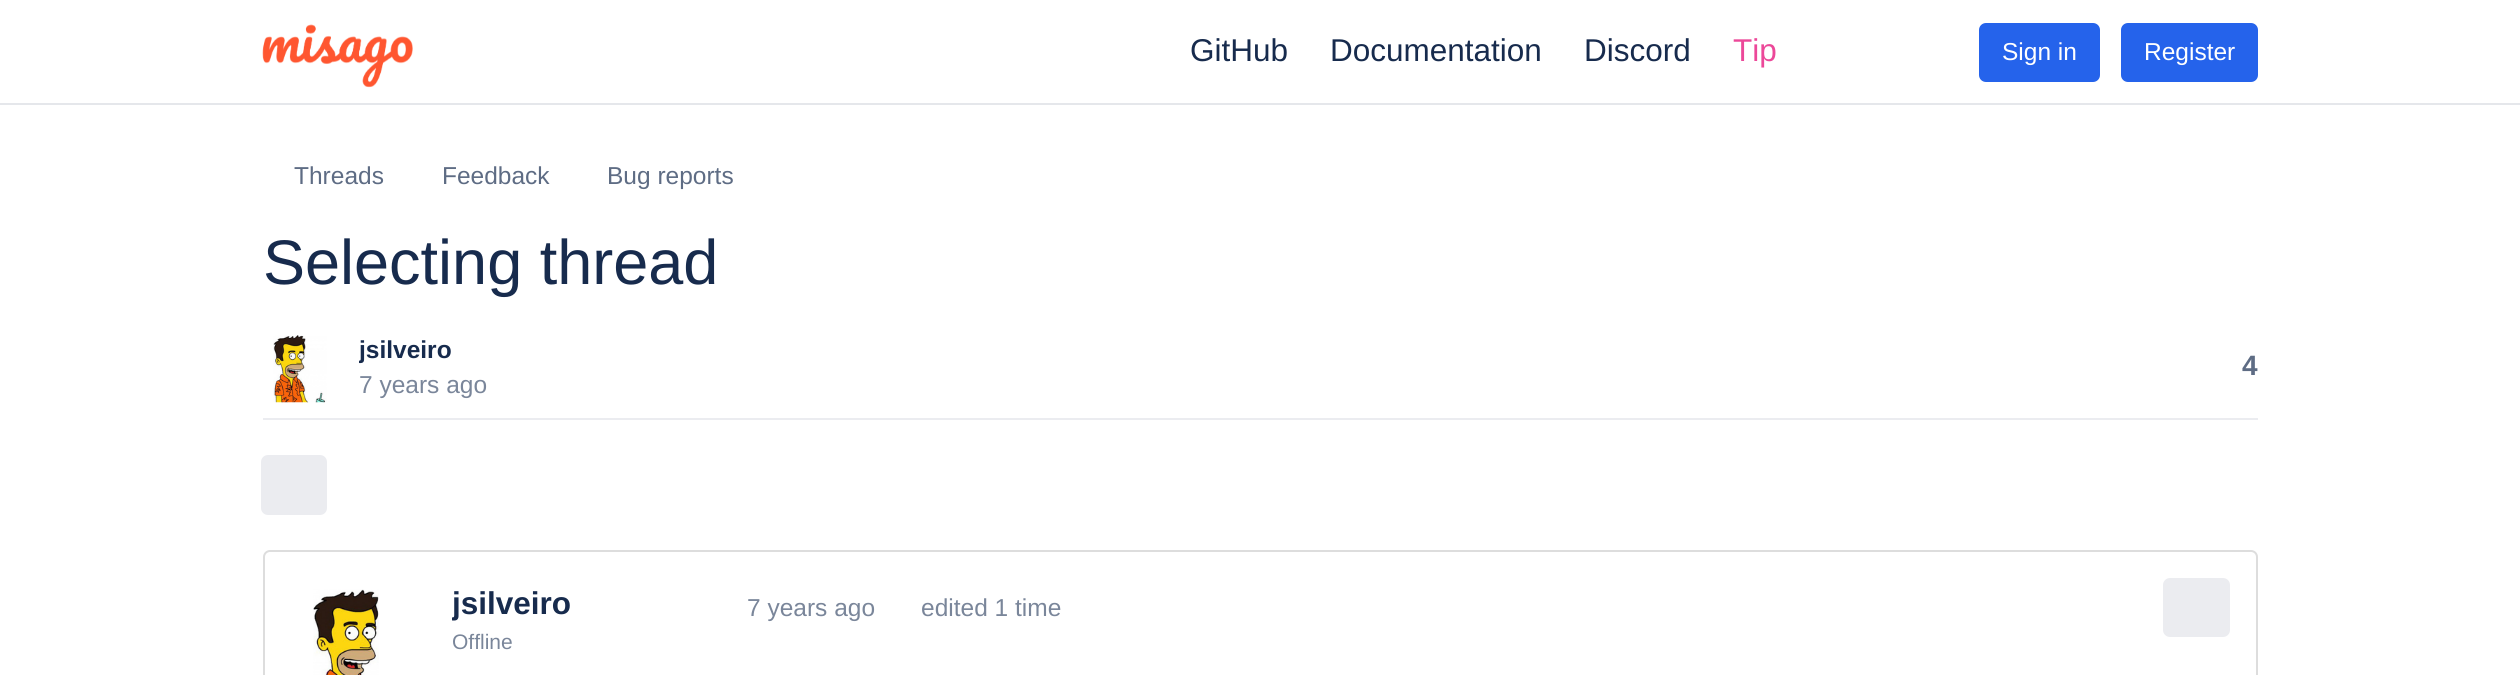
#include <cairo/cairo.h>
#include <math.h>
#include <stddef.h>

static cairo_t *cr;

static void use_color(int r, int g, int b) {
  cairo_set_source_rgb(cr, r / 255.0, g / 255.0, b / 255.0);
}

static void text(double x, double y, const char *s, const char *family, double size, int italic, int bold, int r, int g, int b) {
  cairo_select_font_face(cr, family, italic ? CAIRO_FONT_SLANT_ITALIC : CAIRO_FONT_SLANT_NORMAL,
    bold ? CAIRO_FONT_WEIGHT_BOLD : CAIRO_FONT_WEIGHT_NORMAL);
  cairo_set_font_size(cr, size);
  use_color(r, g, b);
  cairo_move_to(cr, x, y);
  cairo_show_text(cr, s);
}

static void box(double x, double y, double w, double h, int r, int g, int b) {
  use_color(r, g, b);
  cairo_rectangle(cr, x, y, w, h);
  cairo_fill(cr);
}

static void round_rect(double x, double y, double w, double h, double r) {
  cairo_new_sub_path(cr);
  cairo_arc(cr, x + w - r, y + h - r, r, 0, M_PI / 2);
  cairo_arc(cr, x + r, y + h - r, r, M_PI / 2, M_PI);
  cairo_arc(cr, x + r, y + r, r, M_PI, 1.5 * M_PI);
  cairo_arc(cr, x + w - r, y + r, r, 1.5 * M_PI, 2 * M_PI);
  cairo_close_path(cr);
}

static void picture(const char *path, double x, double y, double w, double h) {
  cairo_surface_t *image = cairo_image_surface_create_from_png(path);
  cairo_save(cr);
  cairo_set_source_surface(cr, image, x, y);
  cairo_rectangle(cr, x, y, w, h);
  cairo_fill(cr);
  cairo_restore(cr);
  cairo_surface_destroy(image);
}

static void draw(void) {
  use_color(255, 255, 255);
  cairo_paint(cr);
  box(0, 103, 2520, 2, 229, 231, 235);
  picture("img_01.png", 262, 24, 151, 64);
  use_color(37, 99, 235);
  round_rect(1980, 24, 119, 57, 6);
  cairo_fill_preserve(cr);
  cairo_stroke(cr);
  round_rect(2122, 24, 135, 57, 6);
  cairo_fill_preserve(cr);
  cairo_stroke(cr);
  box(263, 418, 1995, 2, 235, 236, 240);
  picture("img_02.png", 273, 335, 54, 68);
  round_rect(262, 456, 64, 58, 6);
  cairo_fill_preserve(cr);
  cairo_stroke(cr);
  round_rect(264, 551, 1993, 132, 6);
  use_color(221, 221, 221);
  cairo_stroke(cr);
  picture("img_03.png", 313, 589, 66, 86);
  use_color(235, 236, 240);
  round_rect(2164, 579, 65, 57, 6);
  cairo_fill_preserve(cr);
  cairo_stroke(cr);
  text(1190, 61, "GitHub", "Liberation Sans", 31.5, 0, 0, 23, 43, 77);
  text(1330, 61, "Documentation", "Liberation Sans", 31.5, 0, 0, 23, 43, 77);
  text(1584, 61, "Discord", "Liberation Sans", 31.5, 0, 0, 23, 43, 77);
  text(1733, 61, "Tip", "Liberation Sans", 31.5, 0, 0, 236, 72, 153);
  text(2002, 60, "Sign in", "Liberation Sans", 24.5, 0, 0, 255, 255, 255);
  text(2144, 60, "Register", "Liberation Sans", 24.5, 0, 0, 255, 255, 255);
  text(294, 184, "Threads", "Liberation Sans", 24.5, 0, 0, 94, 108, 132);
  text(442, 184, "Feedback", "Liberation Sans", 24.5, 0, 0, 94, 108, 132);
  text(607, 184, "Bug reports", "Liberation Sans", 24.5, 0, 0, 94, 108, 132);
  text(263, 284, "Selecting thread", "Liberation Sans", 63, 0, 0, 23, 43, 77);
  cairo_save(cr);
  cairo_rectangle(cr, 359, 333, 128, 70);
  cairo_clip(cr);
  text(359, 358, "jsilveiro", "Liberation Sans", 24.5, 0, 1, 23, 43, 77);
  cairo_restore(cr);
  text(359, 393, "7 years ago", "Liberation Sans", 24.5, 0, 0, 122, 134, 154);
  text(2242, 375, "4", "Liberation Sans", 28, 0, 1, 94, 108, 132);
  cairo_save(cr);
  cairo_rectangle(cr, 452, 578, 267, 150);
  cairo_clip(cr);
  text(452, 614, "jsilveiro", "Liberation Sans", 31.5, 0, 1, 23, 43, 77);
  cairo_restore(cr);
  text(452, 649, "Offline", "Liberation Sans", 21, 0, 0, 122, 134, 154);
  text(747, 616, "7 years ago", "Liberation Sans", 24.5, 0, 0, 122, 134, 154);
  text(921, 616, "edited 1 time", "Liberation Sans", 24.5, 0, 0, 122, 134, 154);
}

int main(void) {
  cairo_surface_t *surface = cairo_image_surface_create(CAIRO_FORMAT_RGB24, 2520, 675);
  cr = cairo_create(surface);
  cairo_font_options_t *options = cairo_font_options_create();
  cairo_font_options_set_hint_metrics(options, CAIRO_HINT_METRICS_OFF);
  cairo_font_options_set_hint_style(options, CAIRO_HINT_STYLE_NONE);
  cairo_set_font_options(cr, options);
  cairo_set_miter_limit(cr, 4);
  draw();
  cairo_surface_write_to_png(surface, "out.png");
  cairo_font_options_destroy(options);
  cairo_destroy(cr);
  cairo_surface_destroy(surface);
  return 0;
}
